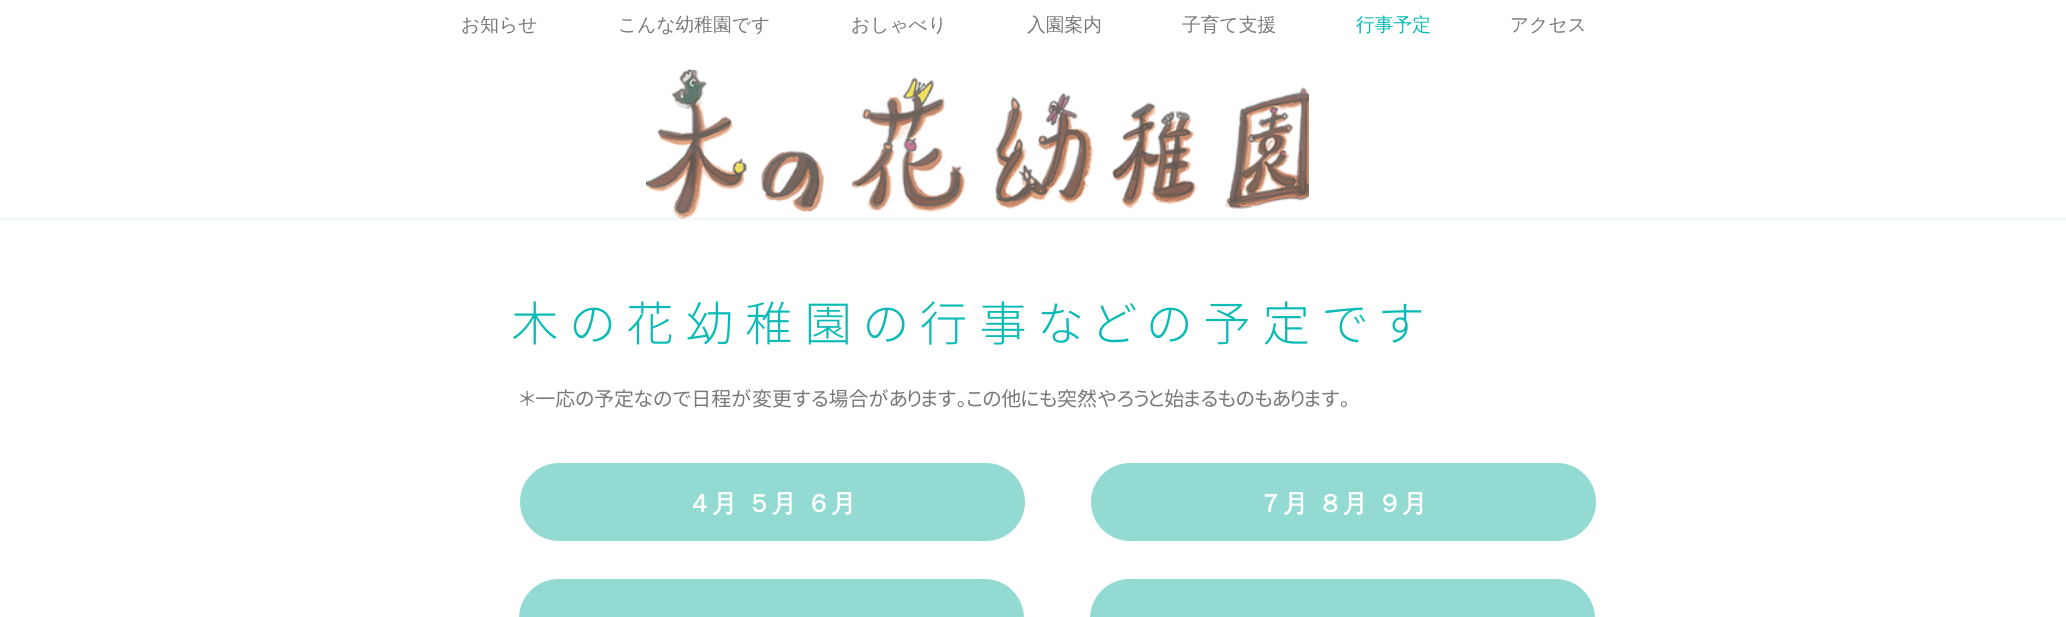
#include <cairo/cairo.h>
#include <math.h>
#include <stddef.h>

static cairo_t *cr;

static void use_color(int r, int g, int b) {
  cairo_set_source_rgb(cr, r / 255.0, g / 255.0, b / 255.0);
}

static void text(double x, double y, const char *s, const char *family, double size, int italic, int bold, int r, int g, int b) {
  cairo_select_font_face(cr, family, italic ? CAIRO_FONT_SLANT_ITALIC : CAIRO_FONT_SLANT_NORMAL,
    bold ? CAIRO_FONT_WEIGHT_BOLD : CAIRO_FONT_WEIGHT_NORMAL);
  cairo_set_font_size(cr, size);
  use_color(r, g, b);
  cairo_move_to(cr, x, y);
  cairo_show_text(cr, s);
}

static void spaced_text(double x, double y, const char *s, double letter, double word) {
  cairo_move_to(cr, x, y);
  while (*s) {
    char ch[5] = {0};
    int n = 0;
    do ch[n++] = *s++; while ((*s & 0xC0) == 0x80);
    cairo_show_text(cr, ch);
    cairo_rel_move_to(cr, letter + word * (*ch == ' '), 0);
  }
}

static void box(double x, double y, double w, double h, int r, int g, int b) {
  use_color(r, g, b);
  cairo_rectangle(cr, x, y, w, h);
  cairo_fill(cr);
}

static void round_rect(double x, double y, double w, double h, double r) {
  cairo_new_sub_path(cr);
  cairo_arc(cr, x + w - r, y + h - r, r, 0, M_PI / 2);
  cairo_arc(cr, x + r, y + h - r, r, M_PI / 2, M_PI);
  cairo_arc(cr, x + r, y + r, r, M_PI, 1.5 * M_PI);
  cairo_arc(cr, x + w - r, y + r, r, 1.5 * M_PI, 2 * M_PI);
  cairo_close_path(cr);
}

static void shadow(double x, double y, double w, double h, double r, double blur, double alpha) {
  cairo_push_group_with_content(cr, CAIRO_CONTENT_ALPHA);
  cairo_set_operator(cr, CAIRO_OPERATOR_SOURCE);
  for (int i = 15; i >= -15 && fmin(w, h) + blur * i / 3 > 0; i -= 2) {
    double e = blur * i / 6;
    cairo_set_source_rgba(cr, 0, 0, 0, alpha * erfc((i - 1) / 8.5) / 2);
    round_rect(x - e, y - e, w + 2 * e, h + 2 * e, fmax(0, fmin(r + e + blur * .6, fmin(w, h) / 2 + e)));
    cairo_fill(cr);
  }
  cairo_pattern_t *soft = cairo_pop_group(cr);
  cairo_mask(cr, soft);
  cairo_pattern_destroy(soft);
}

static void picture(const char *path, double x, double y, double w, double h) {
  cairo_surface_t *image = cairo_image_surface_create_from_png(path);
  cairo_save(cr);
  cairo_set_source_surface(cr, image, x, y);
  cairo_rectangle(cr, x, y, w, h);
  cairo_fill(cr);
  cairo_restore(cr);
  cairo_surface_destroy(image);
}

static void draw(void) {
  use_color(255, 255, 255);
  cairo_paint(cr);
  use_color(37, 147, 133);
  shadow(-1, 0, 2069, 220, 0, 0.5, 0.07);
  box(0, 0, 2066, 218, 255, 255, 255);
  picture("img_01.png", 646, 69, 663, 150);
  use_color(147, 219, 210);
  round_rect(520, 463, 505, 78, 39);
  cairo_fill(cr);
  round_rect(1091, 463, 505, 78, 39);
  cairo_fill(cr);
  round_rect(519, 579, 505, 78, 39.5);
  cairo_fill(cr);
  round_rect(1090, 579, 505, 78, 39.5);
  cairo_fill(cr);
  text(461, 31, "お知らせ", "WenQuanYi Zen Hei Medium", 18.75, 0, 0, 120, 120, 119);
  text(618, 31, "こんな幼稚園です", "WenQuanYi Zen Hei Medium", 18.75, 0, 0, 120, 120, 119);
  text(851, 31, "おしゃべり", "WenQuanYi Zen Hei Medium", 18.75, 0, 0, 120, 120, 119);
  text(1027, 31, "入園案内", "WenQuanYi Zen Hei Medium", 18.75, 0, 0, 120, 120, 119);
  text(1182, 31, "子育て支援", "WenQuanYi Zen Hei Medium", 18.75, 0, 0, 120, 120, 119);
  text(1356, 31, "行事予定", "WenQuanYi Zen Hei Medium", 18.75, 0, 0, 10, 186, 181);
  text(1510, 31, "アクセス", "WenQuanYi Zen Hei Medium", 18.75, 0, 0, 120, 120, 119);
  cairo_select_font_face(cr, "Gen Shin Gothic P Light", CAIRO_FONT_SLANT_NORMAL, CAIRO_FONT_WEIGHT_NORMAL);
  cairo_set_font_size(cr, 47.5);
  use_color(10, 186, 181);
  spaced_text(511, 341, "木の花幼稚園の行事などの予定です", 11.9, 0);
  text(519, 406, "＊一応の予定なので日程が変更する場合があります。この他にも突然やろうと始まるものもあります。", "Gen Shin Gothic P", 20, 0, 0, 120, 120, 119);
  cairo_select_font_face(cr, "WenQuanYi Zen Hei", CAIRO_FONT_SLANT_NORMAL, CAIRO_FONT_WEIGHT_BOLD);
  cairo_set_font_size(cr, 25);
  use_color(255, 255, 255);
  spaced_text(687, 512, "４月 ５月 ６月", 0, 2);
  spaced_text(1258, 512, "７月 ８月 ９月", 0, 2);
}

int main(void) {
  cairo_surface_t *surface = cairo_image_surface_create(CAIRO_FORMAT_RGB24, 2066, 617);
  cr = cairo_create(surface);
  cairo_font_options_t *options = cairo_font_options_create();
  cairo_font_options_set_hint_metrics(options, CAIRO_HINT_METRICS_OFF);
  cairo_font_options_set_hint_style(options, CAIRO_HINT_STYLE_NONE);
  cairo_set_font_options(cr, options);
  cairo_set_miter_limit(cr, 4);
  draw();
  cairo_surface_write_to_png(surface, "out.png");
  cairo_font_options_destroy(options);
  cairo_destroy(cr);
  cairo_surface_destroy(surface);
  return 0;
}
